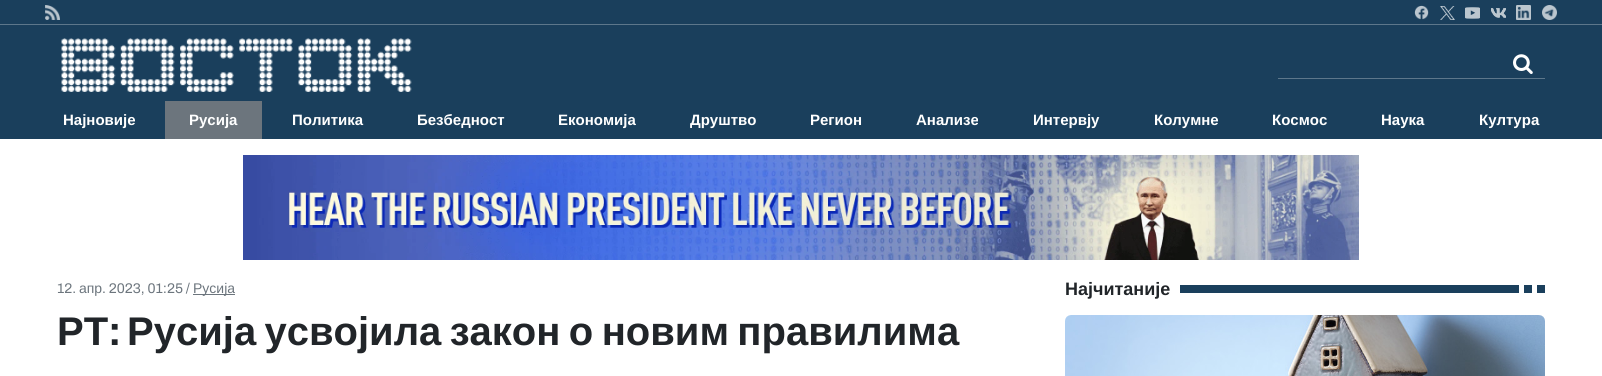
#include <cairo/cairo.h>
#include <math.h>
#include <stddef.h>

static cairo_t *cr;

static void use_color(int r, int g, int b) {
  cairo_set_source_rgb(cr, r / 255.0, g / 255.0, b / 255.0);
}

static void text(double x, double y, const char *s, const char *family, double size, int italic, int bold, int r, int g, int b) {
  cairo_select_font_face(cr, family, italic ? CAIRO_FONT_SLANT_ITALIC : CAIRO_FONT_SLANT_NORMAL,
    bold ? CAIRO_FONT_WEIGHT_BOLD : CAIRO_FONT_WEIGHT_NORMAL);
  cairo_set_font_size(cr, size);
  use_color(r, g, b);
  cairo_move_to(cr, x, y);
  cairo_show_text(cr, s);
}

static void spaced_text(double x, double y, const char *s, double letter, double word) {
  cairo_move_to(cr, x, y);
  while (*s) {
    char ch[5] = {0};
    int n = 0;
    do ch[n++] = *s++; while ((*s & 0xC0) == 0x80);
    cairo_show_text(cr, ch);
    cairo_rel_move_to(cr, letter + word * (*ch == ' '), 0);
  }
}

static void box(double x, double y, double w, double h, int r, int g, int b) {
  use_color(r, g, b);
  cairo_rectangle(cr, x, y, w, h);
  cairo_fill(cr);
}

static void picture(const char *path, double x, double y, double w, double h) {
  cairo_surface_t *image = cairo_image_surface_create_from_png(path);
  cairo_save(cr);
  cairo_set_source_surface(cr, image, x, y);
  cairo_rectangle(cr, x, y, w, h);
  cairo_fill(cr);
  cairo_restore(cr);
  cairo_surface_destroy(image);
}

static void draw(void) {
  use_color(255, 255, 255);
  cairo_paint(cr);
  box(0, 0, 1602, 24, 26, 63, 92);
  box(0, 24, 1602, 1, 93, 119, 139);
  picture("img_01.png", 45, 5, 15, 15);
  picture("img_02.png", 1414, 5, 15, 15);
  picture("img_03.png", 1440, 6, 15, 14);
  picture("img_04.png", 1465, 7, 15, 12);
  picture("img_05.png", 1491, 8, 15, 10);
  picture("img_06.png", 1516, 5, 15, 15);
  picture("img_07.png", 1542, 5, 15, 15);
  box(0, 25, 1602, 114, 26, 63, 92);
  picture("img_08.png", 61, 38, 351, 54);
  box(1278, 78, 267, 1, 93, 119, 139);
  picture("img_09.png", 1513, 54, 20, 20);
  box(165, 101, 97, 38, 108, 117, 125);
  picture("img_10.png", 243, 155, 1116, 105);
  box(193, 294, 42, 1, 108, 117, 125);
  box(1180, 285, 339, 8, 26, 63, 92);
  box(1524, 285, 8, 8, 26, 63, 92);
  box(1537, 285, 8, 8, 26, 63, 92);
  picture("img_11.png", 1065, 315, 480, 61);
  text(63, 125, "Најновије", "Liberation Sans", 15, 0, 1, 255, 255, 255);
  text(189, 125, "Русија", "Liberation Sans", 15, 0, 1, 255, 255, 255);
  text(292, 125, "Политика", "Liberation Sans", 15, 0, 1, 255, 255, 255);
  text(417, 125, "Безбедност", "Liberation Sans", 15, 0, 1, 255, 255, 255);
  text(558, 125, "Економија", "Liberation Sans", 15, 0, 1, 255, 255, 255);
  text(690, 125, "Друштво", "Liberation Sans", 15, 0, 1, 255, 255, 255);
  text(810, 125, "Регион", "Liberation Sans", 15, 0, 1, 255, 255, 255);
  text(916, 125, "Анализе", "Liberation Sans", 15, 0, 1, 255, 255, 255);
  text(1033, 125, "Интервју", "Liberation Sans", 15, 0, 1, 255, 255, 255);
  text(1154, 125, "Колумне", "Liberation Sans", 15, 0, 1, 255, 255, 255);
  text(1272, 125, "Космос", "Liberation Sans", 15, 0, 1, 255, 255, 255);
  text(1381, 125, "Наука", "Liberation Sans", 15, 0, 1, 255, 255, 255);
  text(1479, 125, "Култура", "Liberation Sans", 15, 0, 1, 255, 255, 255);
  text(57, 293, "12.", "Archivo", 14, 0, 0, 108, 117, 125);
  text(79, 293, "апр", "Liberation Sans", 14, 0, 0, 108, 117, 125);
  text(102, 293, ". 2023, 01:25 /", "Archivo", 14, 0, 0, 108, 117, 125);
  text(193, 293, "Русија", "Liberation Sans", 14, 0, 0, 108, 117, 125);
  text(57, 345, "РТ", "Liberation Sans", 40, 0, 1, 33, 37, 41);
  text(108, 345, ":", "Archivo", 40, 0, 1, 33, 37, 41);
  cairo_select_font_face(cr, "Liberation Sans", CAIRO_FONT_SLANT_NORMAL, CAIRO_FONT_WEIGHT_BOLD);
  spaced_text(127, 345, "Русија усвојила закон о новим правилима", 0, -2.75);
  text(1065, 295, "Најчитаније", "Liberation Sans", 18, 0, 1, 33, 37, 41);
}

int main(void) {
  cairo_surface_t *surface = cairo_image_surface_create(CAIRO_FORMAT_RGB24, 1602, 376);
  cr = cairo_create(surface);
  cairo_font_options_t *options = cairo_font_options_create();
  cairo_font_options_set_hint_metrics(options, CAIRO_HINT_METRICS_OFF);
  cairo_font_options_set_hint_style(options, CAIRO_HINT_STYLE_NONE);
  cairo_set_font_options(cr, options);
  cairo_set_miter_limit(cr, 4);
  draw();
  cairo_surface_write_to_png(surface, "out.png");
  cairo_font_options_destroy(options);
  cairo_destroy(cr);
  cairo_surface_destroy(surface);
  return 0;
}
